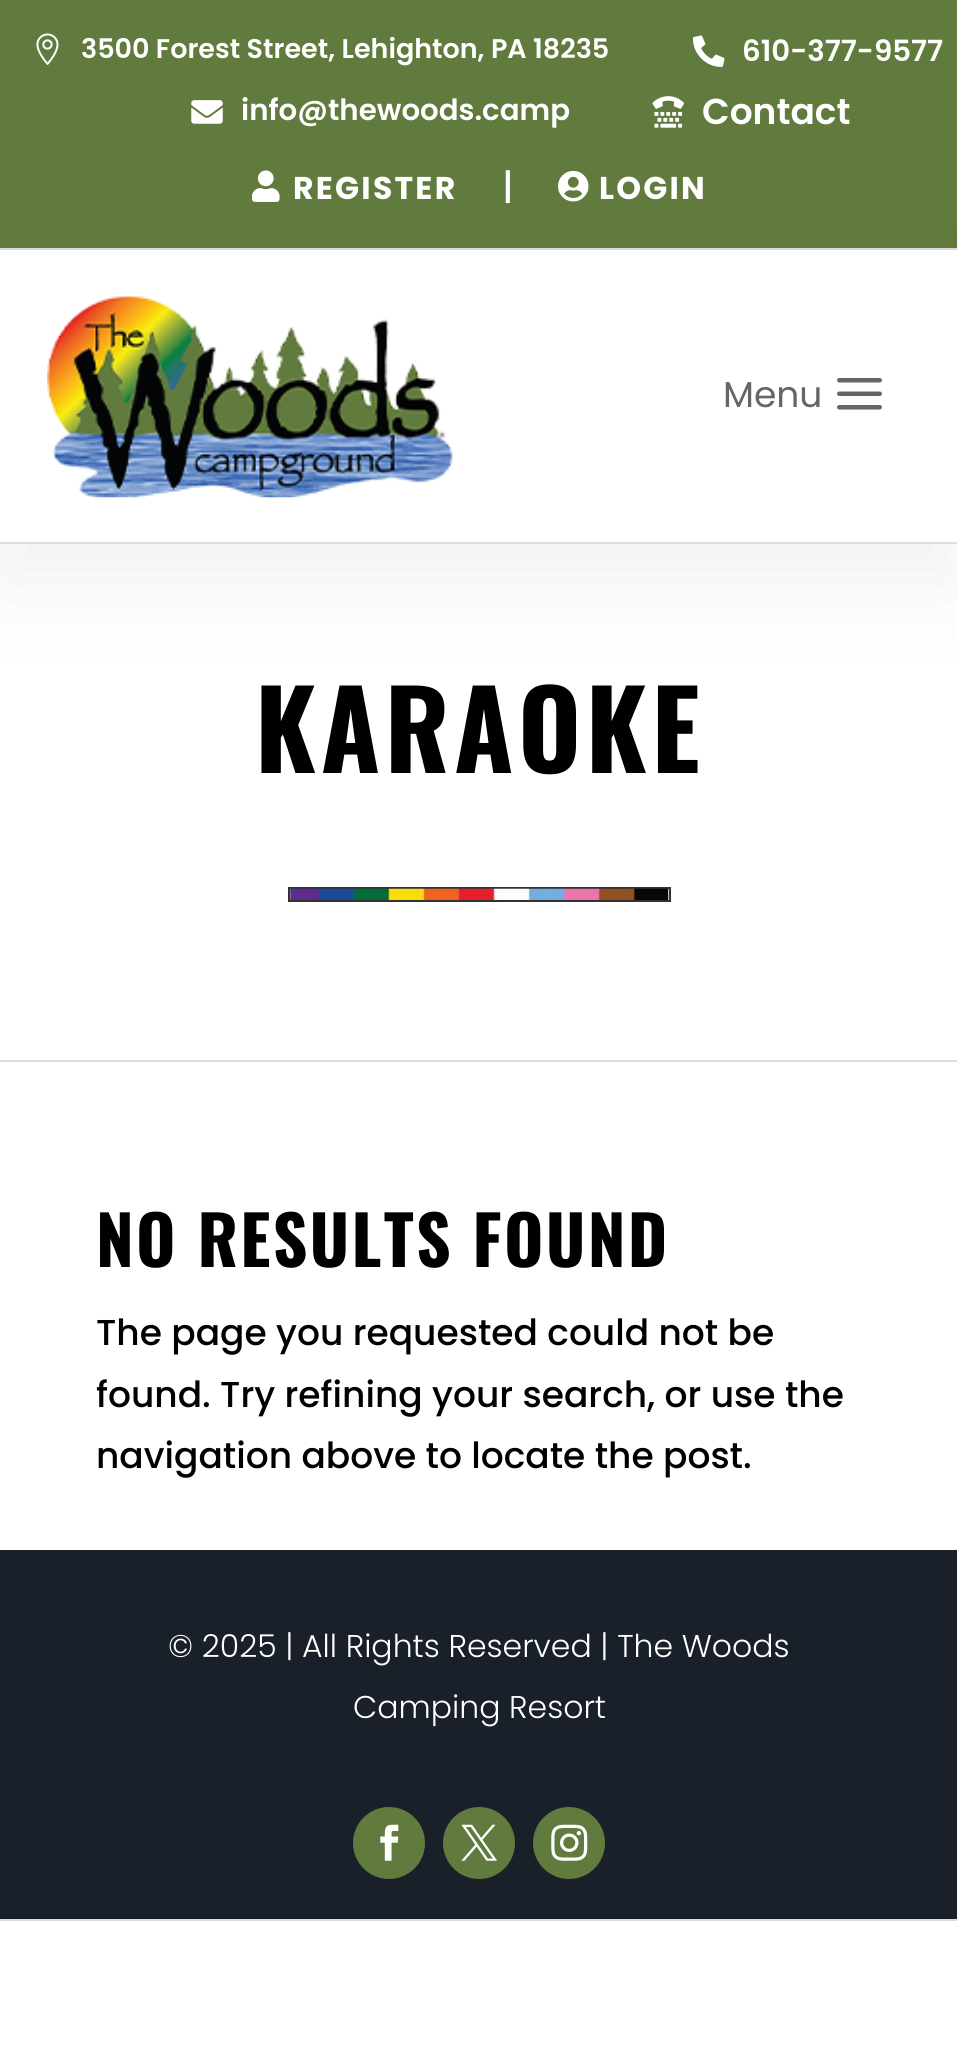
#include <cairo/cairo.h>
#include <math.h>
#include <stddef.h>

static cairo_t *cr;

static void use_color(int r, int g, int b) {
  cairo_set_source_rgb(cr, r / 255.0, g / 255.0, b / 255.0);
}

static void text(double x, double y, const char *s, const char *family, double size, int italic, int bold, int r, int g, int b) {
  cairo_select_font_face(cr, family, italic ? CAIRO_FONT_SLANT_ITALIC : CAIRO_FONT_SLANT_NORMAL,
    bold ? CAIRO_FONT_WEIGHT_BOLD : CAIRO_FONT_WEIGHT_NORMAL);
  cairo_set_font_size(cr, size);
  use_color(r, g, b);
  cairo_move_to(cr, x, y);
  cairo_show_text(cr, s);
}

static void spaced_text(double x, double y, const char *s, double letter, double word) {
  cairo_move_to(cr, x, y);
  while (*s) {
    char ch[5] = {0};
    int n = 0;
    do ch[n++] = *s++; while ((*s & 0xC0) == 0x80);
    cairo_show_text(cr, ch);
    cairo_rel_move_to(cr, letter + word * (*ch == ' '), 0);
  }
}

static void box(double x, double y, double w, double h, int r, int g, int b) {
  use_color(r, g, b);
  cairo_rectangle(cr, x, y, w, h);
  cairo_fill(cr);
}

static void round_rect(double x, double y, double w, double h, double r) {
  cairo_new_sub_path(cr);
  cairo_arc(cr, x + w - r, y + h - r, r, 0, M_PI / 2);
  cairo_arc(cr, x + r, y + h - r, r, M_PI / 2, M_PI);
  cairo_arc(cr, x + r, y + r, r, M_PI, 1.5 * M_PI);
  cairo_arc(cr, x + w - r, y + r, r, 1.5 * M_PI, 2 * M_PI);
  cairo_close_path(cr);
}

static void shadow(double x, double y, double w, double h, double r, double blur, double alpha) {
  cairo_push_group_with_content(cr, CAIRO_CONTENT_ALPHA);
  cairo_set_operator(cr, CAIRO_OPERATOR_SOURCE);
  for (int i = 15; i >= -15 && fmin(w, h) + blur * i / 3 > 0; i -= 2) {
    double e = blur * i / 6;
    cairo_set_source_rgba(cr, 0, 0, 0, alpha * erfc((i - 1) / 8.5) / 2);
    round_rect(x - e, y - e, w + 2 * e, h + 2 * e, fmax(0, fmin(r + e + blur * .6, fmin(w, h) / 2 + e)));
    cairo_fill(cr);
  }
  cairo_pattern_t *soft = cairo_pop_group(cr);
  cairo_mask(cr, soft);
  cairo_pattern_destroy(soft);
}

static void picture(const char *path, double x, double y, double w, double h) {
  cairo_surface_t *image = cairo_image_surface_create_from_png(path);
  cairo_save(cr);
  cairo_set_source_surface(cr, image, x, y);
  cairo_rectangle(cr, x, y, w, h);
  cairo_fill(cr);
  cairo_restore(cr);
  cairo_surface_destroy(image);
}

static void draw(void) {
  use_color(255, 255, 255);
  cairo_paint(cr);
  box(0, 0, 957, 248, 97, 123, 62);
  box(0, 248, 957, 2, 221, 221, 221);
  picture("img_01.png", 36, 33, 23, 32);
  picture("img_02.png", 693, 35, 32, 32);
  picture("img_03.png", 191, 100, 32, 24);
  picture("img_04.png", 652, 96, 32, 32);
  picture("img_05.png", 252, 170, 28, 32);
  picture("img_06.png", 558, 170, 31, 32);
  use_color(0, 0, 0);
  shadow(0, 286, 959, 295, 0, 54, 0.06);
  box(0, 542, 957, 2, 221, 221, 221);
  box(0, 250, 957, 292, 255, 255, 255);
  picture("img_07.png", 47, 296, 406, 202);
  picture("img_08.png", 837, 378, 45, 32);
  box(0, 1060, 957, 2, 221, 221, 221);
  cairo_rectangle(cr, 289, 888, 381, 13);
  use_color(51, 51, 51);
  cairo_stroke(cr);
  picture("img_09.png", 290, 888, 379, 12);
  box(0, 1550, 957, 369, 25, 32, 42);
  box(0, 1919, 957, 2, 221, 221, 221);
  use_color(96, 123, 61);
  cairo_arc(cr, 389, 1843, 36, 0, 2 * M_PI);
  cairo_fill(cr);
  picture("img_10.png", 380, 1824, 19, 37);
  cairo_arc(cr, 479, 1843, 36, 0, 2 * M_PI);
  cairo_fill(cr);
  picture("img_11.png", 461, 1824, 36, 37);
  cairo_arc(cr, 569, 1843, 36, 0, 2 * M_PI);
  cairo_fill(cr);
  picture("img_12.png", 551, 1824, 37, 37);
  text(81, 58, "3500 Forest Street, Lehighton, PA 18235", "Poppins SemiBold", 27, 0, 0, 255, 255, 255);
  text(742, 61, "610-377-9577", "Poppins SemiBold", 29.25, 0, 0, 255, 255, 255);
  text(241, 120, "info@thewoods.camp", "Poppins SemiBold", 29.25, 0, 0, 255, 255, 255);
  text(702, 124, "Contact", "Poppins SemiBold", 36, 0, 0, 255, 255, 255);
  cairo_select_font_face(cr, "Poppins", CAIRO_FONT_SLANT_NORMAL, CAIRO_FONT_WEIGHT_BOLD);
  cairo_set_font_size(cr, 31.5);
  spaced_text(293, 199, "REGISTER", 2.25, 0);
  text(502, 199, "|", "Poppins Medium", 36, 0, 0, 255, 255, 255);
  cairo_select_font_face(cr, "Poppins", CAIRO_FONT_SLANT_NORMAL, CAIRO_FONT_WEIGHT_BOLD);
  cairo_set_font_size(cr, 31.5);
  spaced_text(599, 199, "LOGIN", 2.25, 0);
  text(723, 407, "Menu", "Poppins", 36, 0, 0, 102, 102, 102);
  cairo_select_font_face(cr, "Oswald", CAIRO_FONT_SLANT_NORMAL, CAIRO_FONT_WEIGHT_BOLD);
  cairo_set_font_size(cr, 108);
  use_color(0, 0, 0);
  spaced_text(255, 773, "KARAOKE", 4.5, 0);
  cairo_set_font_size(cr, 67.5);
  spaced_text(96, 1267, "NO RESULTS FOUND", 2.25, 0);
  text(96, 1345, "The page you requested could not be", "Poppins Medium", 36, 0, 0, 0, 0, 0);
  text(96, 1407, "found. Try refining your search, or use the", "Poppins Medium", 36, 0, 0, 0, 0, 0);
  text(96, 1468, "navigation above to locate the post.", "Poppins Medium", 36, 0, 0, 0, 0, 0);
  text(168, 1657, "© 2025 | All Rights Reserved | The Woods", "Poppins Light", 31.5, 0, 0, 255, 255, 255);
  text(353, 1718, "Camping Resort", "Poppins Light", 31.5, 0, 0, 255, 255, 255);
}

int main(void) {
  cairo_surface_t *surface = cairo_image_surface_create(CAIRO_FORMAT_RGB24, 957, 2063);
  cr = cairo_create(surface);
  cairo_font_options_t *options = cairo_font_options_create();
  cairo_font_options_set_hint_metrics(options, CAIRO_HINT_METRICS_OFF);
  cairo_font_options_set_hint_style(options, CAIRO_HINT_STYLE_NONE);
  cairo_set_font_options(cr, options);
  cairo_set_miter_limit(cr, 4);
  draw();
  cairo_surface_write_to_png(surface, "out.png");
  cairo_font_options_destroy(options);
  cairo_destroy(cr);
  cairo_surface_destroy(surface);
  return 0;
}
